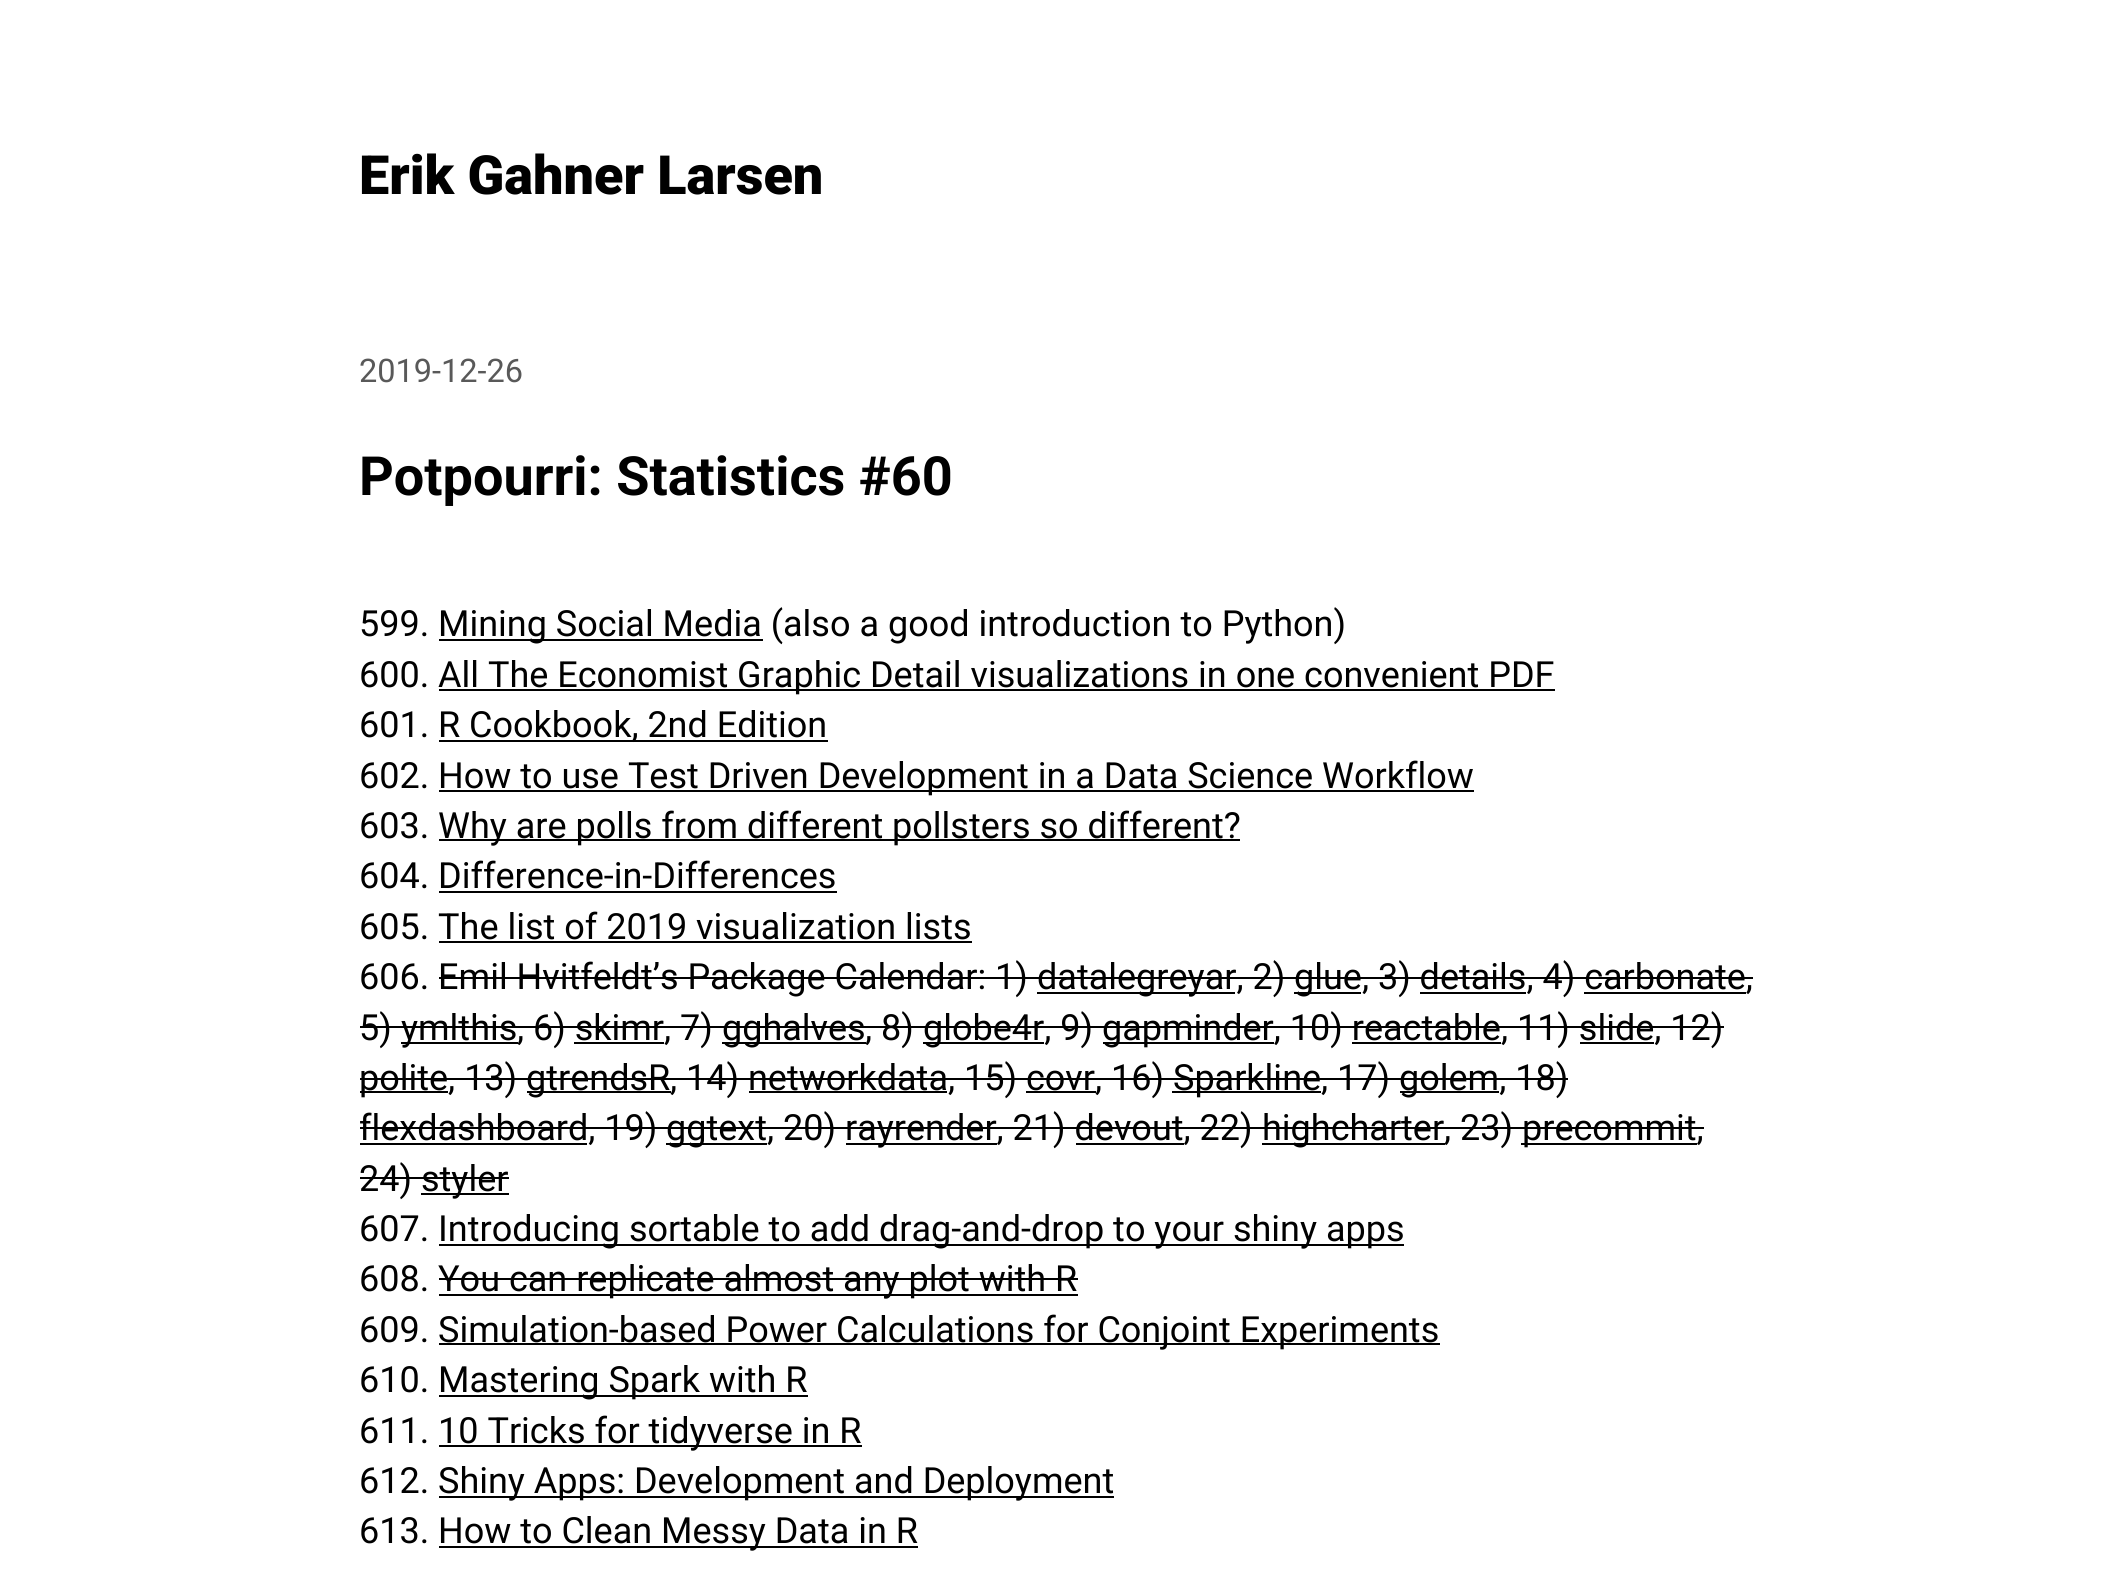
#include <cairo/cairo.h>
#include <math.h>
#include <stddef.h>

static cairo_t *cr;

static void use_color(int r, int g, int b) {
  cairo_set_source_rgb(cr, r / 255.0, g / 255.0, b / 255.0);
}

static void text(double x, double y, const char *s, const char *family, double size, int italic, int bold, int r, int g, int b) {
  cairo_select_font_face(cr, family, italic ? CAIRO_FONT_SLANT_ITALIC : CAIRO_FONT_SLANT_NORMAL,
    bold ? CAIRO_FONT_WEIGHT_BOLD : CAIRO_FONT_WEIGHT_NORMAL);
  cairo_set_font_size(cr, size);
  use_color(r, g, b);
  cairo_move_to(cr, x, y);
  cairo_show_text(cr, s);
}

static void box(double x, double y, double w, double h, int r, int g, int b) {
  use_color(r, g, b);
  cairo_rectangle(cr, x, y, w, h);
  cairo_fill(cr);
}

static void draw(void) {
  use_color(255, 255, 255);
  cairo_paint(cr);
  box(439, 639, 324, 2, 0, 0, 0);
  box(439, 689, 1116, 2, 0, 0, 0);
  box(439, 740, 389, 2, 0, 0, 0);
  box(439, 790, 1035, 2, 0, 0, 0);
  box(439, 839, 801, 2, 0, 0, 0);
  box(439, 891, 398, 2, 0, 0, 0);
  box(439, 941, 533, 2, 0, 0, 0);
  box(439, 977, 598, 2, 0, 0, 0);
  box(1037, 992, 198, 2, 0, 0, 0);
  box(1037, 977, 257, 2, 0, 0, 0);
  box(1294, 992, 67, 2, 0, 0, 0);
  box(1294, 977, 459, 2, 0, 0, 0);
  box(1420, 992, 106, 2, 0, 0, 0);
  box(1584, 992, 162, 2, 0, 0, 0);
  box(360, 1026, 41, 2, 0, 0, 0);
  box(401, 1042, 117, 2, 0, 0, 0);
  box(401, 1026, 117, 2, 0, 0, 0);
  box(518, 1026, 204, 2, 0, 0, 0);
  box(574, 1042, 90, 2, 0, 0, 0);
  box(722, 1042, 144, 2, 0, 0, 0);
  box(722, 1026, 144, 2, 0, 0, 0);
  box(866, 1026, 57, 2, 0, 0, 0);
  box(923, 1042, 121, 2, 0, 0, 0);
  box(923, 1026, 180, 2, 0, 0, 0);
  box(1103, 1042, 171, 2, 0, 0, 0);
  box(1103, 1026, 621, 2, 0, 0, 0);
  box(1352, 1042, 149, 2, 0, 0, 0);
  box(1580, 1042, 74, 2, 0, 0, 0);
  box(360, 1091, 88, 2, 0, 0, 0);
  box(360, 1078, 167, 2, 0, 0, 0);
  box(527, 1091, 144, 2, 0, 0, 0);
  box(527, 1078, 144, 2, 0, 0, 0);
  box(671, 1078, 425, 2, 0, 0, 0);
  box(749, 1091, 198, 2, 0, 0, 0);
  box(1026, 1091, 70, 2, 0, 0, 0);
  box(1096, 1078, 76, 2, 0, 0, 0);
  box(1172, 1091, 149, 2, 0, 0, 0);
  box(1172, 1078, 228, 2, 0, 0, 0);
  box(1400, 1091, 99, 2, 0, 0, 0);
  box(1400, 1078, 168, 2, 0, 0, 0);
  box(360, 1143, 227, 2, 0, 0, 0);
  box(360, 1127, 306, 2, 0, 0, 0);
  box(666, 1143, 101, 2, 0, 0, 0);
  box(666, 1127, 180, 2, 0, 0, 0);
  box(846, 1143, 151, 2, 0, 0, 0);
  box(846, 1127, 416, 2, 0, 0, 0);
  box(1076, 1143, 108, 2, 0, 0, 0);
  box(1262, 1143, 183, 2, 0, 0, 0);
  box(1262, 1127, 183, 2, 0, 0, 0);
  box(1445, 1127, 76, 2, 0, 0, 0);
  box(1521, 1143, 176, 2, 0, 0, 0);
  box(1521, 1127, 183, 2, 0, 0, 0);
  box(360, 1177, 61, 2, 0, 0, 0);
  box(421, 1193, 88, 2, 0, 0, 0);
  box(421, 1177, 88, 2, 0, 0, 0);
  box(439, 1244, 965, 2, 0, 0, 0);
  box(439, 1294, 639, 2, 0, 0, 0);
  box(439, 1278, 639, 2, 0, 0, 0);
  box(439, 1343, 1001, 2, 0, 0, 0);
  box(439, 1395, 369, 2, 0, 0, 0);
  box(439, 1445, 423, 2, 0, 0, 0);
  box(439, 1496, 675, 2, 0, 0, 0);
  box(439, 1546, 479, 2, 0, 0, 0);
  text(359, 194, "Erik Gahner Larsen", "Roboto Black", 54, 0, 0, 0, 0, 0);
  text(359, 382, "2019-12-26", "Roboto", 32.5, 0, 0, 89, 89, 89);
  text(359, 495, "Potpourri: Statistics #60", "Roboto", 54, 0, 1, 0, 0, 0);
  text(359, 636, "599.", "Roboto", 36, 0, 0, 0, 0, 0);
  text(438, 636, "Mining Social Media (also a good introduction to Python)", "Roboto", 36, 0, 0, 0, 0, 0);
  text(359, 687, "600.", "Roboto", 36, 0, 0, 0, 0, 0);
  text(438, 687, "All The Economist Graphic Detail visualizations in one convenient PDF", "Roboto", 36, 0, 0, 0, 0, 0);
  text(359, 737, "601.", "Roboto", 36, 0, 0, 0, 0, 0);
  text(438, 737, "R Cookbook, 2nd Edition", "Roboto", 36, 0, 0, 0, 0, 0);
  text(359, 788, "602.", "Roboto", 36, 0, 0, 0, 0, 0);
  text(438, 788, "How to use Test Driven Development in a Data Science Workflow", "Roboto", 36, 0, 0, 0, 0, 0);
  text(359, 838, "603.", "Roboto", 36, 0, 0, 0, 0, 0);
  text(438, 838, "Why are polls from different pollsters so different?", "Roboto", 36, 0, 0, 0, 0, 0);
  text(359, 888, "604. Difference-in-Differences", "Roboto", 36, 0, 0, 0, 0, 0);
  text(359, 939, "605. The list of 2019 visualization lists", "Roboto", 36, 0, 0, 0, 0, 0);
  text(359, 989, "606. Emil Hvitfeldt’s Package Calendar: 1)", "Roboto", 36, 0, 0, 0, 0, 0);
  text(1037, 989, "datalegreyar, 2)", "Roboto", 36, 0, 0, 0, 0, 0);
  text(1294, 989, "glue, 3) details, 4) carbonate,", "Roboto", 36, 0, 0, 0, 0, 0);
  text(359, 1040, "5)", "Roboto", 36, 0, 0, 0, 0, 0);
  text(401, 1040, "ymlthis", "Roboto", 36, 0, 0, 0, 0, 0);
  text(517, 1040, ", 6) skimr, 7)", "Roboto", 36, 0, 0, 0, 0, 0);
  text(722, 1040, "gghalves", "Roboto", 36, 0, 0, 0, 0, 0);
  text(865, 1040, ", 8)", "Roboto", 36, 0, 0, 0, 0, 0);
  text(923, 1040, "globe4r, 9)", "Roboto", 36, 0, 0, 0, 0, 0);
  text(1102, 1040, "gapminder, 10) reactable, 11) slide, 12)", "Roboto", 36, 0, 0, 0, 0, 0);
  text(359, 1090, "polite, 13)", "Roboto", 36, 0, 0, 0, 0, 0);
  text(526, 1090, "gtrendsR", "Roboto", 36, 0, 0, 0, 0, 0);
  text(670, 1090, ", 14) networkdata, 15) covr", "Roboto", 36, 0, 0, 0, 0, 0);
  text(1095, 1090, ", 16)", "Roboto", 36, 0, 0, 0, 0, 0);
  text(1173, 1090, "Sparkline, 17)", "Roboto", 36, 0, 0, 0, 0, 0);
  text(1399, 1090, "golem, 18)", "Roboto", 36, 0, 0, 0, 0, 0);
  text(359, 1140, "flexdashboard, 19)", "Roboto", 36, 0, 0, 0, 0, 0);
  text(666, 1140, "ggtext, 20)", "Roboto", 36, 0, 0, 0, 0, 0);
  text(845, 1140, "rayrender, 21) devout, 22)", "Roboto", 36, 0, 0, 0, 0, 0);
  text(1262, 1140, "highcharter", "Roboto", 36, 0, 0, 0, 0, 0);
  text(1444, 1140, ", 23)", "Roboto", 36, 0, 0, 0, 0, 0);
  text(1522, 1140, "precommit,", "Roboto", 36, 0, 0, 0, 0, 0);
  text(359, 1191, "24)", "Roboto", 36, 0, 0, 0, 0, 0);
  text(421, 1191, "styler", "Roboto", 36, 0, 0, 0, 0, 0);
  text(359, 1241, "607.", "Roboto", 36, 0, 0, 0, 0, 0);
  text(438, 1241, "Introducing sortable to add drag-and-drop to your shiny apps", "Roboto", 36, 0, 0, 0, 0, 0);
  text(359, 1291, "608.", "Roboto", 36, 0, 0, 0, 0, 0);
  text(438, 1291, "You can replicate almost any plot with R", "Roboto", 36, 0, 0, 0, 0, 0);
  text(359, 1342, "609.", "Roboto", 36, 0, 0, 0, 0, 0);
  text(438, 1342, "Simulation-based Power Calculations for Conjoint Experiments", "Roboto", 36, 0, 0, 0, 0, 0);
  text(359, 1392, "610.", "Roboto", 36, 0, 0, 0, 0, 0);
  text(438, 1392, "Mastering Spark with R", "Roboto", 36, 0, 0, 0, 0, 0);
  text(359, 1443, "611.", "Roboto", 36, 0, 0, 0, 0, 0);
  text(438, 1443, "10 Tricks for tidyverse in R", "Roboto", 36, 0, 0, 0, 0, 0);
  text(359, 1493, "612.", "Roboto", 36, 0, 0, 0, 0, 0);
  text(438, 1493, "Shiny Apps: Development and Deployment", "Roboto", 36, 0, 0, 0, 0, 0);
  text(359, 1543, "613.", "Roboto", 36, 0, 0, 0, 0, 0);
  text(438, 1543, "How to Clean Messy Data in R", "Roboto", 36, 0, 0, 0, 0, 0);
}

int main(void) {
  cairo_surface_t *surface = cairo_image_surface_create(CAIRO_FORMAT_RGB24, 2111, 1583);
  cr = cairo_create(surface);
  cairo_font_options_t *options = cairo_font_options_create();
  cairo_font_options_set_hint_metrics(options, CAIRO_HINT_METRICS_OFF);
  cairo_font_options_set_hint_style(options, CAIRO_HINT_STYLE_NONE);
  cairo_set_font_options(cr, options);
  cairo_set_miter_limit(cr, 4);
  draw();
  cairo_surface_write_to_png(surface, "out.png");
  cairo_font_options_destroy(options);
  cairo_destroy(cr);
  cairo_surface_destroy(surface);
  return 0;
}
